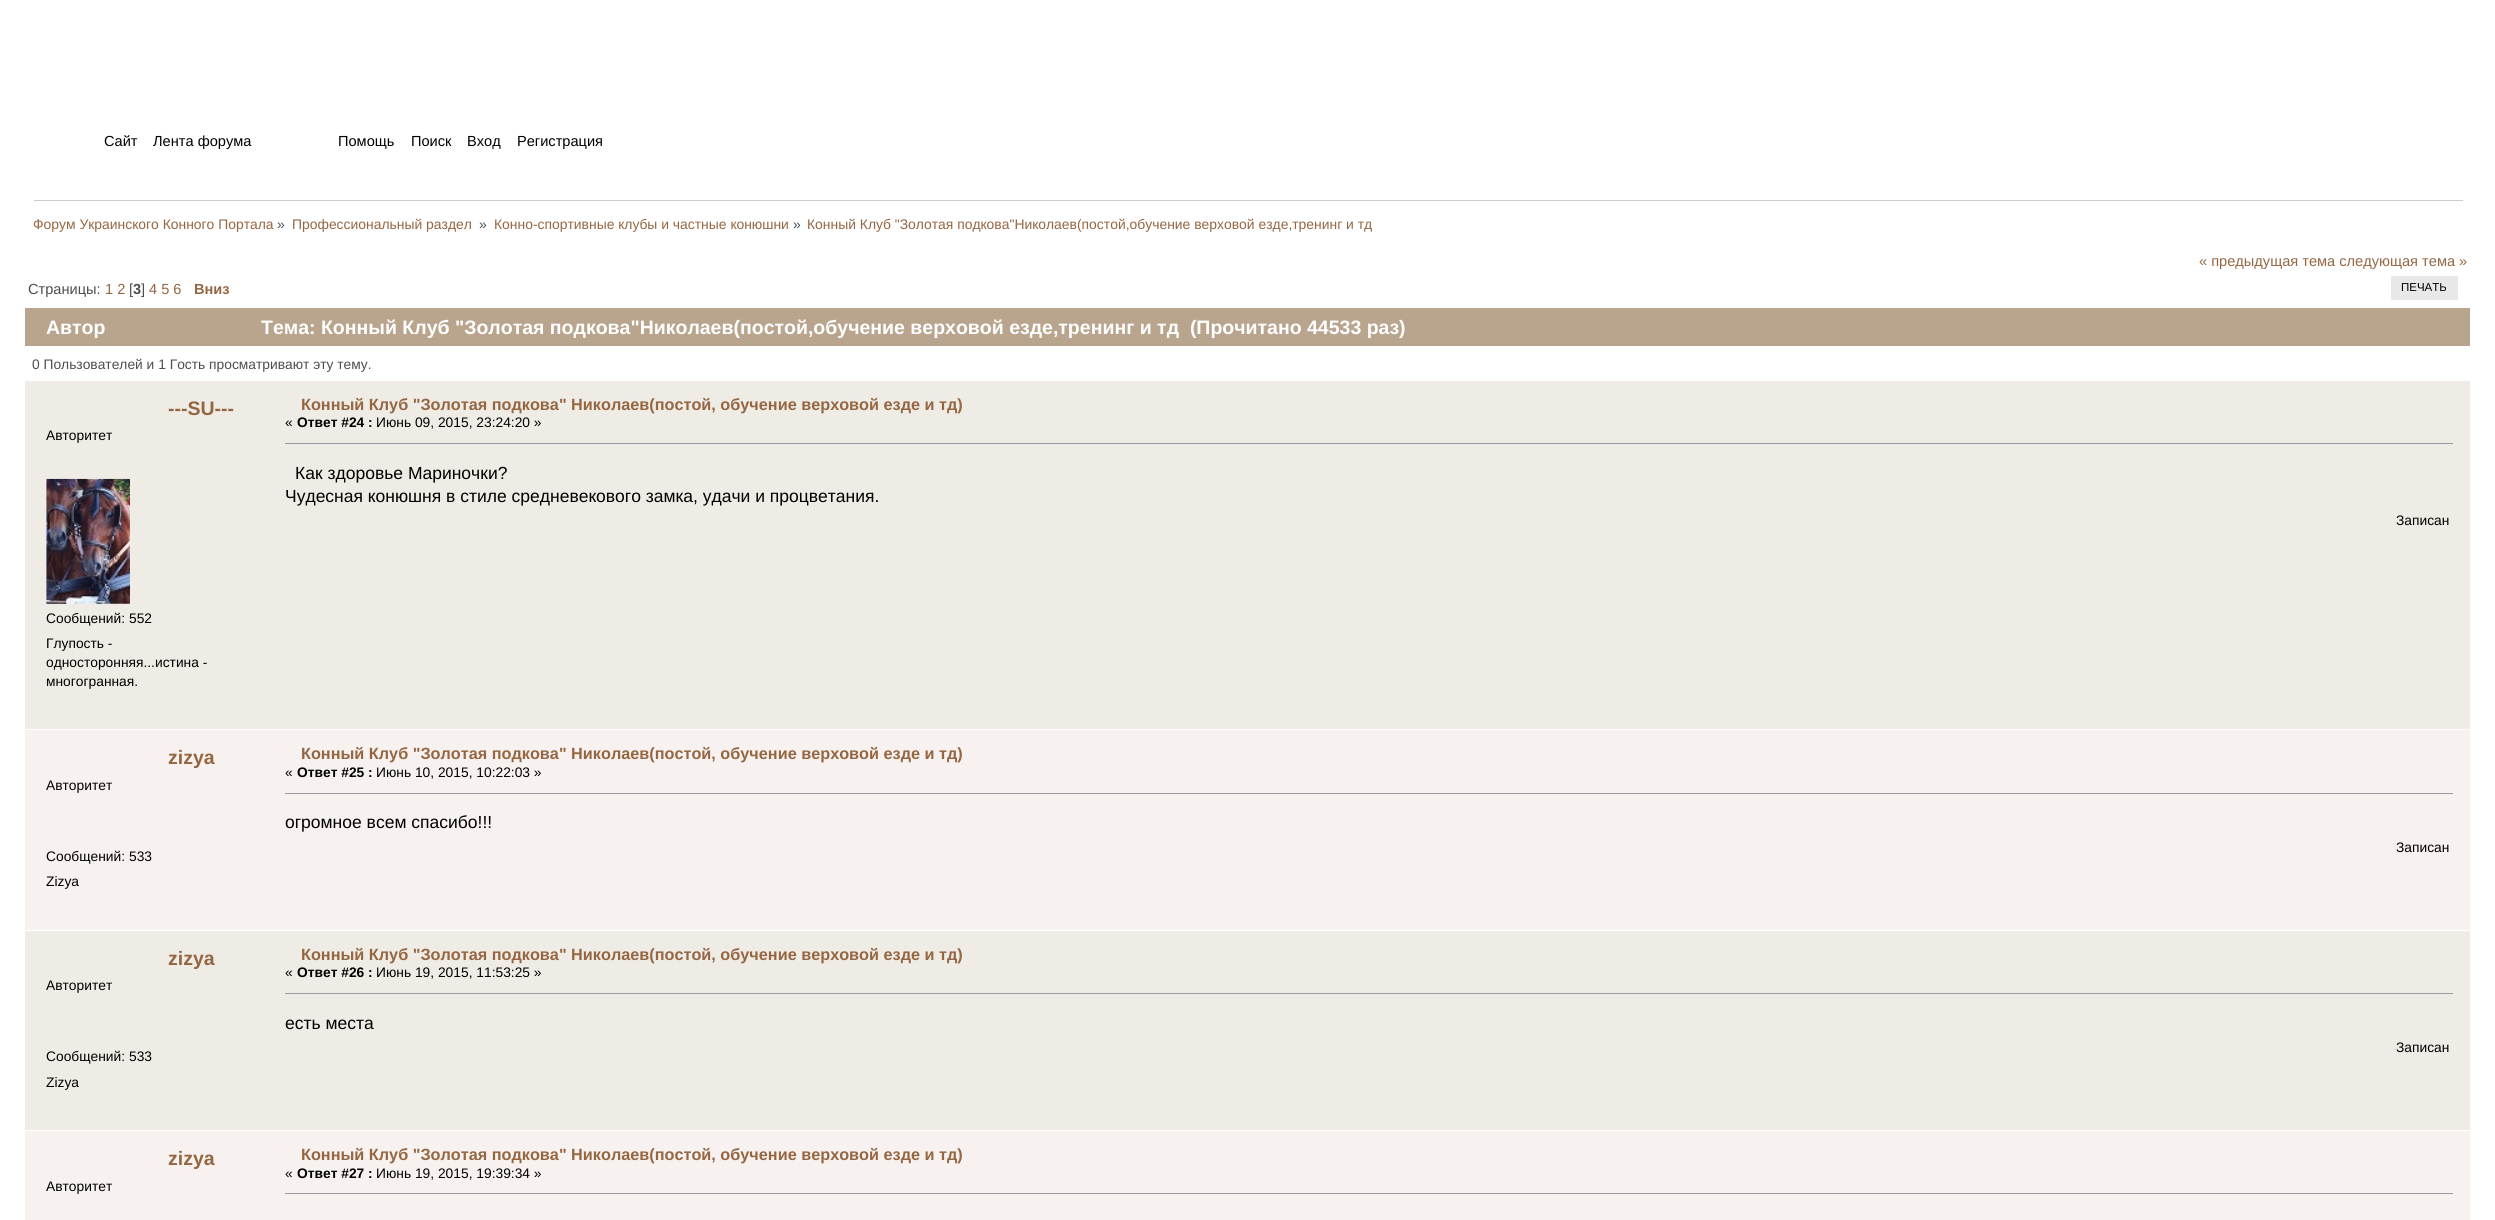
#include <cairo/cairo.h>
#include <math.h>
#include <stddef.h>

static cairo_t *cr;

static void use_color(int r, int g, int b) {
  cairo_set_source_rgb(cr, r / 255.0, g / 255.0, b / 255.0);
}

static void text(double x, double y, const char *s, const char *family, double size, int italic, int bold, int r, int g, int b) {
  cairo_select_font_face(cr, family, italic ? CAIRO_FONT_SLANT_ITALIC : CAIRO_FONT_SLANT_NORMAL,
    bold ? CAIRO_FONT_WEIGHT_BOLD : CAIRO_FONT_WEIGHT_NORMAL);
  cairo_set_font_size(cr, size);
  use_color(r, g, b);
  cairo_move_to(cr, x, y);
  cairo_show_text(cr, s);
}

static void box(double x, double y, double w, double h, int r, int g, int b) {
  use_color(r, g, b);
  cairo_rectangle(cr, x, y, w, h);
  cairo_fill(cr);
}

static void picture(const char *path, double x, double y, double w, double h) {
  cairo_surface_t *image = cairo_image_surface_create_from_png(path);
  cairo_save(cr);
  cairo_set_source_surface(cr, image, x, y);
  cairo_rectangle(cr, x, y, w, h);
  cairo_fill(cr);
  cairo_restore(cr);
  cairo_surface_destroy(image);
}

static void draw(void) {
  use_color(255, 255, 255);
  cairo_paint(cr);
  box(34, 200, 2429, 1, 204, 204, 204);
  box(2391, 276, 67, 24, 232, 232, 232);
  box(25, 308, 2445, 38, 185, 165, 142);
  box(25, 381, 2445, 348, 239, 236, 230);
  picture("img_01.png", 46, 478, 84, 126);
  box(285, 443, 2168, 1, 153, 153, 170);
  box(25, 730, 2445, 200, 247, 242, 239);
  box(285, 793, 2168, 1, 153, 153, 170);
  box(25, 931, 2445, 199, 239, 236, 230);
  box(285, 993, 2168, 1, 153, 153, 170);
  box(25, 1131, 2445, 89, 247, 242, 239);
  box(285, 1193, 2168, 1, 153, 153, 170);
  text(104, 146, "Сайт", "Liberation Sans", 14.6, 0, 0, 0, 0, 0);
  text(153, 146, "Лента форума", "Liberation Sans", 14.6, 0, 0, 0, 0, 0);
  text(338, 146, "Помощь", "Liberation Sans", 14.6, 0, 0, 0, 0, 0);
  text(411, 146, "Поиск", "Liberation Sans", 14.6, 0, 0, 0, 0, 0);
  text(467, 146, "Вход", "Liberation Sans", 14.6, 0, 0, 0, 0, 0);
  text(517, 146, "Регистрация", "Liberation Sans", 14.6, 0, 0, 0, 0, 0);
  text(33, 229, "Форум Украинского Конного Портала", "Liberation Sans", 13.9, 0, 0, 149, 102, 66);
  text(277, 229, "»", "Liberation Sans", 13.9, 0, 0, 77, 77, 77);
  text(292, 229, "Профессиональный раздел", "Liberation Sans", 13.9, 0, 0, 149, 102, 66);
  text(479, 229, "»", "Liberation Sans", 13.9, 0, 0, 77, 77, 77);
  text(494, 229, "Конно-спортивные клубы и частные конюшни", "Liberation Sans", 13.9, 0, 0, 149, 102, 66);
  text(793, 229, "»", "Liberation Sans", 13.9, 0, 0, 77, 77, 77);
  text(807, 229, "Конный Клуб \"Золотая подкова\"Николаев(постой,обучение верховой езде,тренинг и тд", "Liberation Sans", 13.9, 0, 0, 149, 102, 66);
  text(2199, 266, "« предыдущая тема следующая тема »", "Liberation Sans", 14.6, 0, 0, 149, 102, 66);
  text(28, 294, "Страницы:", "Liberation Sans", 14.6, 0, 0, 77, 77, 77);
  text(105, 294, "1 2", "Liberation Sans", 14.6, 0, 0, 149, 102, 66);
  text(129, 294, "[", "Liberation Sans", 14.6, 0, 0, 77, 77, 77);
  text(133, 294, "3", "Liberation Sans", 14.6, 0, 1, 77, 77, 77);
  text(141, 294, "]", "Liberation Sans", 14.6, 0, 0, 77, 77, 77);
  text(149, 294, "4 5 6", "Liberation Sans", 14.6, 0, 0, 149, 102, 66);
  text(194, 294, "Вниз", "Liberation Sans", 14.6, 0, 1, 149, 102, 66);
  text(2401, 291, "ПЕЧАТЬ", "Liberation Sans", 11.5, 0, 0, 0, 0, 0);
  text(46, 334, "Автор", "Liberation Sans", 19.5, 0, 1, 255, 255, 255);
  text(261, 334, "Тема: Конный Клуб \"Золотая подкова\"Николаев(постой,обучение верховой езде,тренинг и тд  (Прочитано 44533 раз)", "Liberation Sans", 19.5, 0, 1, 255, 255, 255);
  text(32, 369, "0 Пользователей и 1 Гость просматривают эту тему.", "Liberation Sans", 13.8, 0, 0, 77, 77, 77);
  text(168, 415, "---SU---", "Liberation Sans", 19.5, 0, 1, 149, 102, 66);
  text(46, 440, "Авторитет", "Liberation Sans", 13.8, 0, 0, 0, 0, 0);
  text(46, 623, "Сообщений: 552", "Liberation Sans", 13.8, 0, 0, 0, 0, 0);
  text(46, 648, "Глупость -", "Liberation Sans", 13.8, 0, 0, 0, 0, 0);
  text(46, 667, "односторонняя...истина -", "Liberation Sans", 13.8, 0, 0, 0, 0, 0);
  text(46, 686, "многогранная.", "Liberation Sans", 13.8, 0, 0, 0, 0, 0);
  text(301, 410, "Конный Клуб \"Золотая подкова\" Николаев(постой, обучение верховой езде и тд)", "Liberation Sans", 16.25, 0, 1, 149, 102, 66);
  text(285, 427, "«", "Liberation Sans", 13.8, 0, 0, 0, 0, 0);
  text(297, 427, "Ответ #24 :", "Liberation Sans", 13.8, 0, 1, 0, 0, 0);
  text(376, 427, "Июнь 09, 2015, 23:24:20 »", "Liberation Sans", 13.8, 0, 0, 0, 0, 0);
  text(295, 479, "Как здоровье Мариночки?", "Liberation Sans", 17.5, 0, 0, 0, 0, 0);
  text(285, 502, "Чудесная конюшня в стиле средневекового замка, удачи и процветания.", "Liberation Sans", 17.5, 0, 0, 0, 0, 0);
  text(2396, 525, "Записан", "Liberation Sans", 13.8, 0, 0, 0, 0, 0);
  text(168, 764, "zizya", "Liberation Sans", 19.5, 0, 1, 149, 102, 66);
  text(46, 790, "Авторитет", "Liberation Sans", 13.8, 0, 0, 0, 0, 0);
  text(46, 861, "Сообщений: 533", "Liberation Sans", 13.8, 0, 0, 0, 0, 0);
  text(46, 886, "Zizya", "Liberation Sans", 13.8, 0, 0, 0, 0, 0);
  text(301, 759, "Конный Клуб \"Золотая подкова\" Николаев(постой, обучение верховой езде и тд)", "Liberation Sans", 16.25, 0, 1, 149, 102, 66);
  text(285, 777, "«", "Liberation Sans", 13.8, 0, 0, 0, 0, 0);
  text(297, 777, "Ответ #25 :", "Liberation Sans", 13.8, 0, 1, 0, 0, 0);
  text(376, 777, "Июнь 10, 2015, 10:22:03 »", "Liberation Sans", 13.8, 0, 0, 0, 0, 0);
  text(285, 828, "огромное всем спасибо!!!", "Liberation Sans", 17.5, 0, 0, 0, 0, 0);
  text(2396, 852, "Записан", "Liberation Sans", 13.8, 0, 0, 0, 0, 0);
  text(168, 965, "zizya", "Liberation Sans", 19.5, 0, 1, 149, 102, 66);
  text(46, 990, "Авторитет", "Liberation Sans", 13.8, 0, 0, 0, 0, 0);
  text(46, 1061, "Сообщений: 533", "Liberation Sans", 13.8, 0, 0, 0, 0, 0);
  text(46, 1087, "Zizya", "Liberation Sans", 13.8, 0, 0, 0, 0, 0);
  text(301, 960, "Конный Клуб \"Золотая подкова\" Николаев(постой, обучение верховой езде и тд)", "Liberation Sans", 16.25, 0, 1, 149, 102, 66);
  text(285, 977, "«", "Liberation Sans", 13.8, 0, 0, 0, 0, 0);
  text(297, 977, "Ответ #26 :", "Liberation Sans", 13.8, 0, 1, 0, 0, 0);
  text(376, 977, "Июнь 19, 2015, 11:53:25 »", "Liberation Sans", 13.8, 0, 0, 0, 0, 0);
  text(285, 1029, "есть места", "Liberation Sans", 17.5, 0, 0, 0, 0, 0);
  text(2396, 1052, "Записан", "Liberation Sans", 13.8, 0, 0, 0, 0, 0);
  text(168, 1165, "zizya", "Liberation Sans", 19.5, 0, 1, 149, 102, 66);
  text(46, 1191, "Авторитет", "Liberation Sans", 13.8, 0, 0, 0, 0, 0);
  text(301, 1160, "Конный Клуб \"Золотая подкова\" Николаев(постой, обучение верховой езде и тд)", "Liberation Sans", 16.25, 0, 1, 149, 102, 66);
  text(285, 1178, "«", "Liberation Sans", 13.8, 0, 0, 0, 0, 0);
  text(297, 1178, "Ответ #27 :", "Liberation Sans", 13.8, 0, 1, 0, 0, 0);
  text(376, 1178, "Июнь 19, 2015, 19:39:34 »", "Liberation Sans", 13.8, 0, 0, 0, 0, 0);
}

int main(void) {
  cairo_surface_t *surface = cairo_image_surface_create(CAIRO_FORMAT_RGB24, 2495, 1220);
  cr = cairo_create(surface);
  cairo_font_options_t *options = cairo_font_options_create();
  cairo_font_options_set_hint_metrics(options, CAIRO_HINT_METRICS_OFF);
  cairo_font_options_set_hint_style(options, CAIRO_HINT_STYLE_NONE);
  cairo_set_font_options(cr, options);
  cairo_set_miter_limit(cr, 4);
  draw();
  cairo_surface_write_to_png(surface, "out.png");
  cairo_font_options_destroy(options);
  cairo_destroy(cr);
  cairo_surface_destroy(surface);
  return 0;
}
